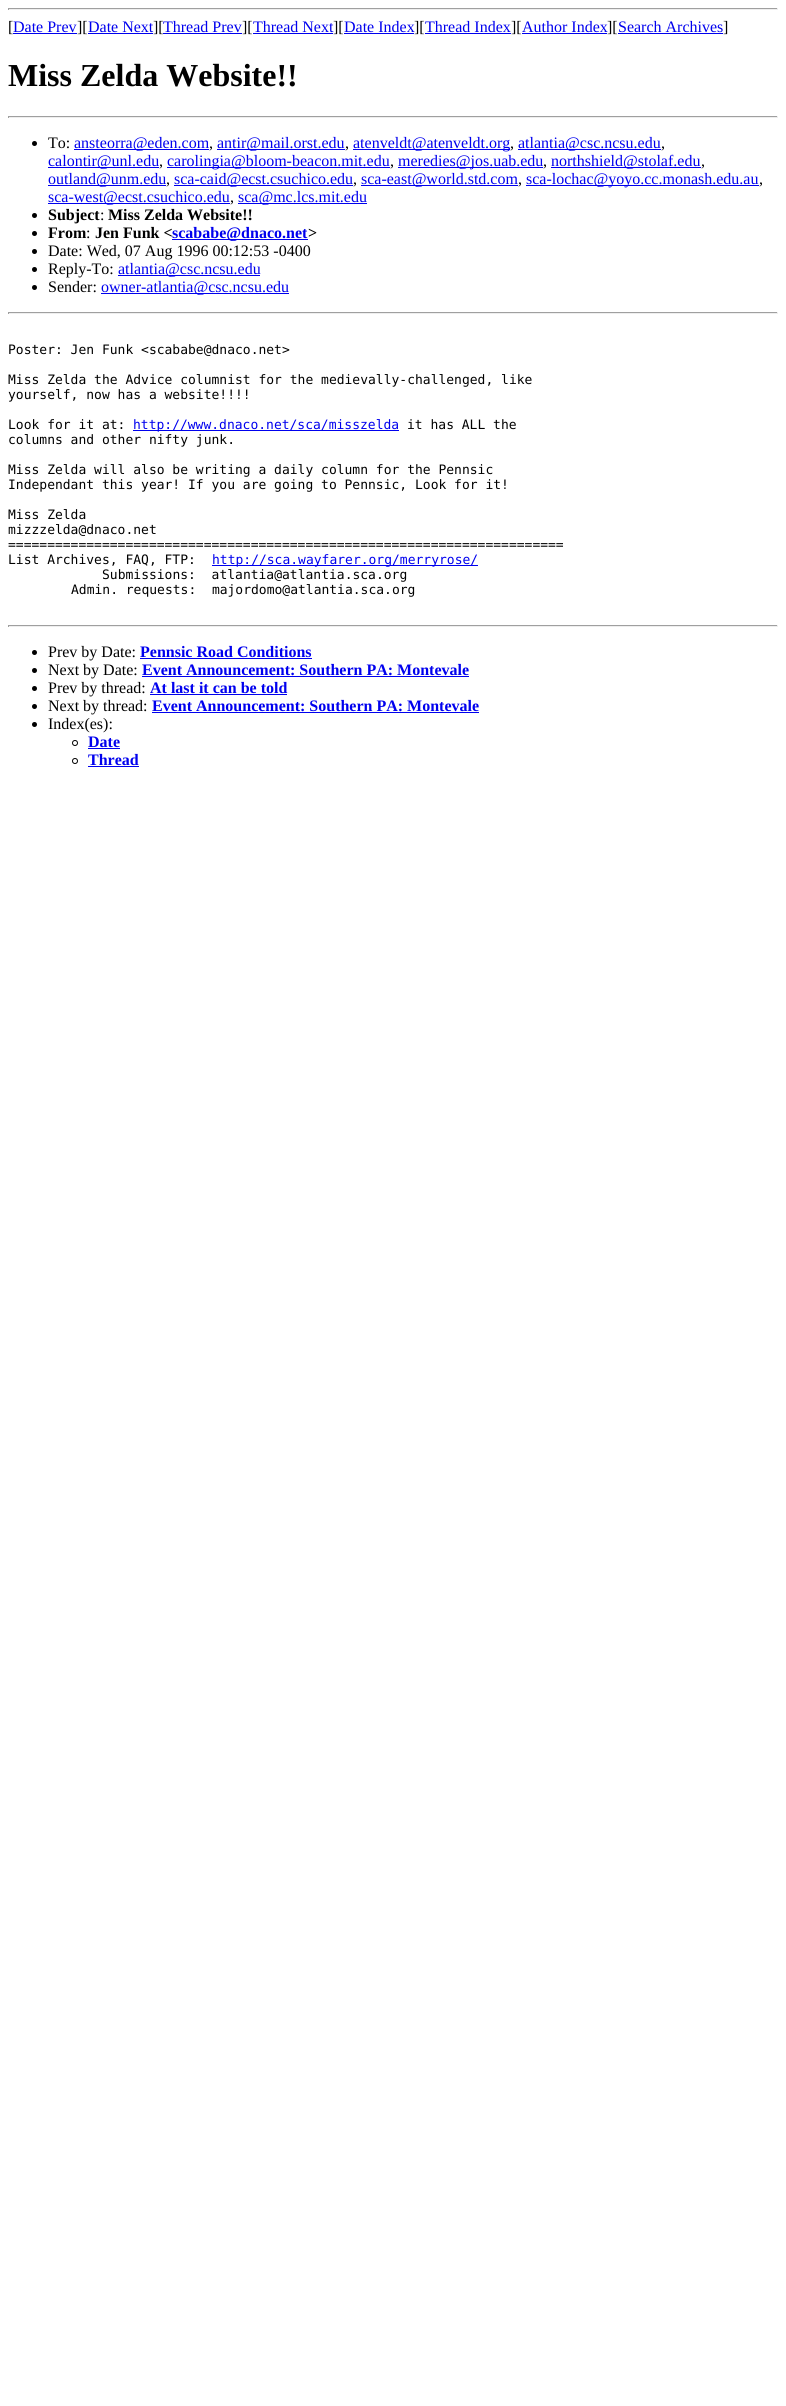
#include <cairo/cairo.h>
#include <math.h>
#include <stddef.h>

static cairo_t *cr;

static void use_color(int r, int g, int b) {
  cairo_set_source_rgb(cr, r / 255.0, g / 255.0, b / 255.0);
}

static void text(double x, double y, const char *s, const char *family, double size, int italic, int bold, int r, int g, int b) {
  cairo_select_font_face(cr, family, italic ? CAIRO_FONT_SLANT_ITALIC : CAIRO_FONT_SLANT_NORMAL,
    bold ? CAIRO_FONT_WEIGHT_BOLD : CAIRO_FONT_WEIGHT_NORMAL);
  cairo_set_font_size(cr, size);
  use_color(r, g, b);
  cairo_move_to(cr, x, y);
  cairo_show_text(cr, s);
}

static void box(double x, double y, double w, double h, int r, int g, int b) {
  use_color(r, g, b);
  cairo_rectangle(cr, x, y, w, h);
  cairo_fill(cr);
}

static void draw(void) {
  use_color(255, 255, 255);
  cairo_paint(cr);
  box(8, 8, 770, 1, 159, 159, 159);
  box(777, 8, 1, 2, 238, 238, 238);
  box(8, 9, 770, 1, 238, 238, 238);
  box(8, 8, 1, 2, 159, 159, 159);
  box(13, 33, 64, 1, 0, 0, 238);
  box(88, 33, 65, 1, 0, 0, 238);
  box(163, 33, 79, 1, 0, 0, 238);
  box(253, 33, 80, 1, 0, 0, 238);
  box(344, 33, 70, 1, 0, 0, 238);
  box(425, 33, 86, 1, 0, 0, 238);
  box(522, 33, 85, 1, 0, 0, 238);
  box(618, 33, 105, 1, 0, 0, 238);
  box(8, 116, 770, 1, 159, 159, 159);
  box(777, 116, 1, 2, 238, 238, 238);
  box(8, 117, 770, 1, 238, 238, 238);
  box(8, 116, 1, 2, 159, 159, 159);
  use_color(0, 0, 0);
  cairo_arc(cr, 34.5, 143.5, 2.5, 0, 2 * M_PI);
  cairo_fill(cr);
  box(74, 149, 135, 1, 0, 0, 238);
  box(217, 149, 128, 1, 0, 0, 238);
  box(353, 149, 157, 1, 0, 0, 238);
  box(518, 149, 143, 1, 0, 0, 238);
  box(48, 167, 111, 1, 0, 0, 238);
  box(167, 167, 223, 1, 0, 0, 238);
  box(398, 167, 145, 1, 0, 0, 238);
  box(551, 167, 150, 1, 0, 0, 238);
  box(48, 185, 118, 1, 0, 0, 238);
  box(174, 185, 179, 1, 0, 0, 238);
  box(361, 185, 157, 1, 0, 0, 238);
  box(526, 185, 233, 1, 0, 0, 238);
  box(48, 203, 182, 1, 0, 0, 238);
  box(238, 203, 129, 1, 0, 0, 238);
  use_color(0, 0, 0);
  cairo_arc(cr, 34.5, 215.5, 2.5, 0, 2 * M_PI);
  cairo_fill(cr);
  cairo_arc(cr, 34.5, 233.5, 2.5, 0, 2 * M_PI);
  cairo_fill(cr);
  box(172, 239, 136, 1, 0, 0, 238);
  use_color(0, 0, 0);
  cairo_arc(cr, 34.5, 251.5, 2.5, 0, 2 * M_PI);
  cairo_fill(cr);
  cairo_arc(cr, 34.5, 269.5, 2.5, 0, 2 * M_PI);
  cairo_fill(cr);
  box(118, 275, 142, 1, 0, 0, 238);
  use_color(0, 0, 0);
  cairo_arc(cr, 34.5, 287.5, 2.5, 0, 2 * M_PI);
  cairo_fill(cr);
  box(101, 293, 188, 1, 0, 0, 238);
  box(8, 312, 770, 1, 159, 159, 159);
  box(777, 312, 1, 2, 238, 238, 238);
  box(8, 313, 770, 1, 238, 238, 238);
  box(8, 312, 1, 2, 159, 159, 159);
  box(133, 430, 266, 1, 0, 0, 238);
  box(212, 565, 266, 1, 0, 0, 238);
  box(8, 625, 770, 1, 159, 159, 159);
  box(777, 625, 1, 2, 238, 238, 238);
  box(8, 626, 770, 1, 238, 238, 238);
  box(8, 625, 1, 2, 159, 159, 159);
  use_color(0, 0, 0);
  cairo_arc(cr, 34.5, 652.5, 2.5, 0, 2 * M_PI);
  cairo_fill(cr);
  box(140, 658, 172, 1, 0, 0, 238);
  use_color(0, 0, 0);
  cairo_arc(cr, 34.5, 670.5, 2.5, 0, 2 * M_PI);
  cairo_fill(cr);
  box(142, 676, 327, 1, 0, 0, 238);
  use_color(0, 0, 0);
  cairo_arc(cr, 34.5, 688.5, 2.5, 0, 2 * M_PI);
  cairo_fill(cr);
  box(150, 694, 137, 1, 0, 0, 238);
  use_color(0, 0, 0);
  cairo_arc(cr, 34.5, 706.5, 2.5, 0, 2 * M_PI);
  cairo_fill(cr);
  box(152, 712, 327, 1, 0, 0, 238);
  use_color(0, 0, 0);
  cairo_arc(cr, 34.5, 724.5, 2.5, 0, 2 * M_PI);
  cairo_fill(cr);
  cairo_arc(cr, 75, 743, 2.5, 0, 2 * M_PI);
  cairo_set_line_width(cr, 1);
  cairo_stroke(cr);
  box(88, 748, 32, 1, 0, 0, 238);
  cairo_arc(cr, 75, 761, 2.5, 0, 2 * M_PI);
  use_color(0, 0, 0);
  cairo_stroke(cr);
  box(88, 766, 51, 1, 0, 0, 238);
  text(8, 32, "[", "Liberation Serif", 16, 0, 0, 0, 0, 0);
  text(13, 32, "Date Prev", "Liberation Serif", 16, 0, 0, 0, 0, 238);
  text(77, 32, "][", "Liberation Serif", 16, 0, 0, 0, 0, 0);
  text(88, 32, "Date Next", "Liberation Serif", 16, 0, 0, 0, 0, 238);
  text(153, 32, "][", "Liberation Serif", 16, 0, 0, 0, 0, 0);
  text(163, 32, "Thread Prev", "Liberation Serif", 16, 0, 0, 0, 0, 238);
  text(242, 32, "][", "Liberation Serif", 16, 0, 0, 0, 0, 0);
  text(253, 32, "Thread Next", "Liberation Serif", 16, 0, 0, 0, 0, 238);
  text(333, 32, "][", "Liberation Serif", 16, 0, 0, 0, 0, 0);
  text(344, 32, "Date Index", "Liberation Serif", 16, 0, 0, 0, 0, 238);
  text(414, 32, "][", "Liberation Serif", 16, 0, 0, 0, 0, 0);
  text(425, 32, "Thread Index", "Liberation Serif", 16, 0, 0, 0, 0, 238);
  text(511, 32, "][", "Liberation Serif", 16, 0, 0, 0, 0, 0);
  text(522, 32, "Author Index", "Liberation Serif", 16, 0, 0, 0, 0, 238);
  text(607, 32, "][", "Liberation Serif", 16, 0, 0, 0, 0, 0);
  text(618, 32, "Search Archives", "Liberation Serif", 16, 0, 0, 0, 0, 238);
  text(723, 32, "]", "Liberation Serif", 16, 0, 0, 0, 0, 0);
  text(8, 86, "Miss Zelda Website!!", "Liberation Serif", 32, 0, 1, 0, 0, 0);
  text(48, 148, "To:", "Liberation Serif", 16, 0, 0, 0, 0, 0);
  text(74, 148, "ansteorra@eden.com", "Liberation Serif", 16, 0, 0, 0, 0, 238);
  text(217, 148, "antir@mail.orst.edu", "Liberation Serif", 16, 0, 0, 0, 0, 238);
  text(353, 148, "atenveldt@atenveldt.org", "Liberation Serif", 16, 0, 0, 0, 0, 238);
  text(518, 148, "atlantia@csc.ncsu.edu", "Liberation Serif", 16, 0, 0, 0, 0, 238);
  text(209, 148, ",", "Liberation Serif", 16, 0, 0, 0, 0, 0);
  text(345, 148, ",", "Liberation Serif", 16, 0, 0, 0, 0, 0);
  text(510, 148, ",", "Liberation Serif", 16, 0, 0, 0, 0, 0);
  text(661, 148, ",", "Liberation Serif", 16, 0, 0, 0, 0, 0);
  text(48, 166, "calontir@unl.edu", "Liberation Serif", 16, 0, 0, 0, 0, 238);
  text(159, 166, ",", "Liberation Serif", 16, 0, 0, 0, 0, 0);
  text(167, 166, "carolingia@bloom-beacon.mit.edu", "Liberation Serif", 16, 0, 0, 0, 0, 238);
  text(390, 166, ",", "Liberation Serif", 16, 0, 0, 0, 0, 0);
  text(398, 166, "meredies@jos.uab.edu", "Liberation Serif", 16, 0, 0, 0, 0, 238);
  text(543, 166, ",", "Liberation Serif", 16, 0, 0, 0, 0, 0);
  text(551, 166, "northshield@stolaf.edu", "Liberation Serif", 16, 0, 0, 0, 0, 238);
  text(701, 166, ",", "Liberation Serif", 16, 0, 0, 0, 0, 0);
  text(48, 184, "outland@unm.edu", "Liberation Serif", 16, 0, 0, 0, 0, 238);
  text(166, 184, ",", "Liberation Serif", 16, 0, 0, 0, 0, 0);
  text(174, 184, "sca-caid@ecst.csuchico.edu", "Liberation Serif", 16, 0, 0, 0, 0, 238);
  text(353, 184, ",", "Liberation Serif", 16, 0, 0, 0, 0, 0);
  text(361, 184, "sca-east@world.std.com", "Liberation Serif", 16, 0, 0, 0, 0, 238);
  text(518, 184, ",", "Liberation Serif", 16, 0, 0, 0, 0, 0);
  text(526, 184, "sca-lochac@yoyo.cc.monash.edu.au", "Liberation Serif", 16, 0, 0, 0, 0, 238);
  text(759, 184, ",", "Liberation Serif", 16, 0, 0, 0, 0, 0);
  text(48, 202, "sca-west@ecst.csuchico.edu", "Liberation Serif", 16, 0, 0, 0, 0, 238);
  text(230, 202, ",", "Liberation Serif", 16, 0, 0, 0, 0, 0);
  text(238, 202, "sca@mc.lcs.mit.edu", "Liberation Serif", 16, 0, 0, 0, 0, 238);
  text(48, 220, "Subject", "Liberation Serif", 16, 0, 1, 0, 0, 0);
  text(100, 220, ":", "Liberation Serif", 16, 0, 0, 0, 0, 0);
  text(108, 220, "Miss Zelda Website!!", "Liberation Serif", 16, 0, 1, 0, 0, 0);
  text(48, 238, "From", "Liberation Serif", 16, 0, 1, 0, 0, 0);
  text(86, 238, ":", "Liberation Serif", 16, 0, 0, 0, 0, 0);
  text(95, 238, "Jen Funk <", "Liberation Serif", 16, 0, 1, 0, 0, 0);
  text(172, 238, "scababe@dnaco.net", "Liberation Serif", 16, 0, 1, 0, 0, 238);
  text(308, 238, ">", "Liberation Serif", 16, 0, 1, 0, 0, 0);
  text(48, 256, "Date: Wed, 07 Aug 1996 00:12:53 -0400", "Liberation Serif", 16, 0, 0, 0, 0, 0);
  text(48, 274, "Reply-To:", "Liberation Serif", 16, 0, 0, 0, 0, 0);
  text(118, 274, "atlantia@csc.ncsu.edu", "Liberation Serif", 16, 0, 0, 0, 0, 238);
  text(48, 292, "Sender:", "Liberation Serif", 16, 0, 0, 0, 0, 0);
  text(101, 292, "owner-atlantia@csc.ncsu.edu", "Liberation Serif", 16, 0, 0, 0, 0, 238);
  text(8, 354, "Poster: Jen Funk <scababe@dnaco.net>", "DejaVu Sans Mono", 13, 0, 0, 0, 0, 0);
  text(8, 384, "Miss Zelda the Advice columnist for the medievally-challenged, like", "DejaVu Sans Mono", 13, 0, 0, 0, 0, 0);
  text(8, 399, "yourself, now has a website!!!!", "DejaVu Sans Mono", 13, 0, 0, 0, 0, 0);
  text(8, 429, "Look for it at:", "DejaVu Sans Mono", 13, 0, 0, 0, 0, 0);
  text(133, 429, "http://www.dnaco.net/sca/misszelda", "DejaVu Sans Mono", 13, 0, 0, 0, 0, 238);
  text(407, 429, "it has ALL the", "DejaVu Sans Mono", 13, 0, 0, 0, 0, 0);
  text(8, 444, "columns and other nifty junk.", "DejaVu Sans Mono", 13, 0, 0, 0, 0, 0);
  text(8, 474, "Miss Zelda will also be writing a daily column for the Pennsic", "DejaVu Sans Mono", 13, 0, 0, 0, 0, 0);
  text(8, 489, "Independant this year! If you are going to Pennsic, Look for it!", "DejaVu Sans Mono", 13, 0, 0, 0, 0, 0);
  text(8, 519, "Miss Zelda", "DejaVu Sans Mono", 13, 0, 0, 0, 0, 0);
  text(8, 534, "mizzzelda@dnaco.net", "DejaVu Sans Mono", 13, 0, 0, 0, 0, 0);
  text(8, 549, "=======================================================================", "DejaVu Sans Mono", 13, 0, 0, 0, 0, 0);
  text(8, 564, "List Archives, FAQ, FTP:", "DejaVu Sans Mono", 13, 0, 0, 0, 0, 0);
  text(212, 564, "http://sca.wayfarer.org/merryrose/", "DejaVu Sans Mono", 13, 0, 0, 0, 0, 238);
  text(102, 579, "Submissions:  atlantia@atlantia.sca.org", "DejaVu Sans Mono", 13, 0, 0, 0, 0, 0);
  text(71, 594, "Admin. requests:  majordomo@atlantia.sca.org", "DejaVu Sans Mono", 13, 0, 0, 0, 0, 0);
  text(48, 657, "Prev by Date:", "Liberation Serif", 16, 0, 0, 0, 0, 0);
  text(140, 657, "Pennsic Road Conditions", "Liberation Serif", 16, 0, 1, 0, 0, 238);
  text(48, 675, "Next by Date:", "Liberation Serif", 16, 0, 0, 0, 0, 0);
  text(142, 675, "Event Announcement: Southern PA: Montevale", "Liberation Serif", 16, 0, 1, 0, 0, 238);
  text(48, 693, "Prev by thread:", "Liberation Serif", 16, 0, 0, 0, 0, 0);
  text(150, 693, "At last it can be told", "Liberation Serif", 16, 0, 1, 0, 0, 238);
  text(48, 711, "Next by thread:", "Liberation Serif", 16, 0, 0, 0, 0, 0);
  text(152, 711, "Event Announcement: Southern PA: Montevale", "Liberation Serif", 16, 0, 1, 0, 0, 238);
  text(48, 729, "Index(es):", "Liberation Serif", 16, 0, 0, 0, 0, 0);
  text(88, 747, "Date", "Liberation Serif", 16, 0, 1, 0, 0, 238);
  text(88, 765, "Thread", "Liberation Serif", 16, 0, 1, 0, 0, 238);
}

int main(void) {
  cairo_surface_t *surface = cairo_image_surface_create(CAIRO_FORMAT_RGB24, 786, 2406);
  cr = cairo_create(surface);
  cairo_font_options_t *options = cairo_font_options_create();
  cairo_font_options_set_hint_metrics(options, CAIRO_HINT_METRICS_OFF);
  cairo_font_options_set_hint_style(options, CAIRO_HINT_STYLE_NONE);
  cairo_set_font_options(cr, options);
  cairo_set_miter_limit(cr, 4);
  draw();
  cairo_surface_write_to_png(surface, "out.png");
  cairo_font_options_destroy(options);
  cairo_destroy(cr);
  cairo_surface_destroy(surface);
  return 0;
}
